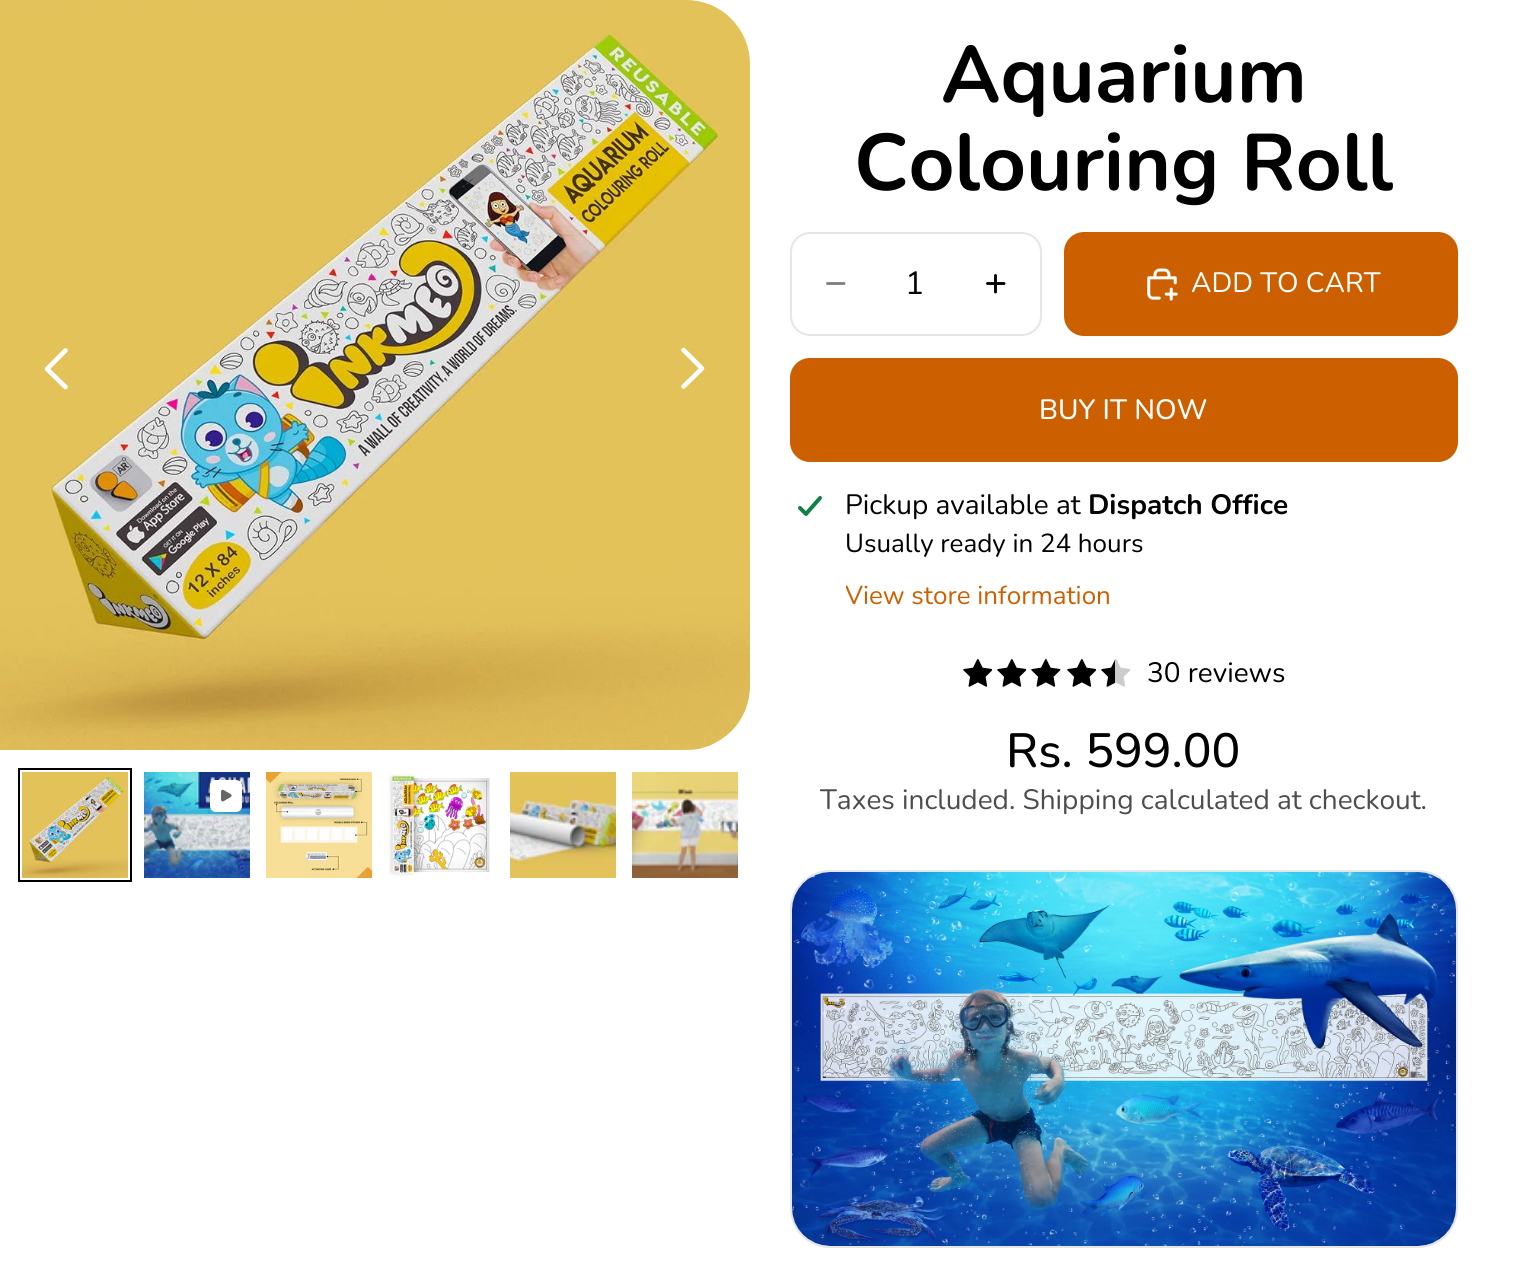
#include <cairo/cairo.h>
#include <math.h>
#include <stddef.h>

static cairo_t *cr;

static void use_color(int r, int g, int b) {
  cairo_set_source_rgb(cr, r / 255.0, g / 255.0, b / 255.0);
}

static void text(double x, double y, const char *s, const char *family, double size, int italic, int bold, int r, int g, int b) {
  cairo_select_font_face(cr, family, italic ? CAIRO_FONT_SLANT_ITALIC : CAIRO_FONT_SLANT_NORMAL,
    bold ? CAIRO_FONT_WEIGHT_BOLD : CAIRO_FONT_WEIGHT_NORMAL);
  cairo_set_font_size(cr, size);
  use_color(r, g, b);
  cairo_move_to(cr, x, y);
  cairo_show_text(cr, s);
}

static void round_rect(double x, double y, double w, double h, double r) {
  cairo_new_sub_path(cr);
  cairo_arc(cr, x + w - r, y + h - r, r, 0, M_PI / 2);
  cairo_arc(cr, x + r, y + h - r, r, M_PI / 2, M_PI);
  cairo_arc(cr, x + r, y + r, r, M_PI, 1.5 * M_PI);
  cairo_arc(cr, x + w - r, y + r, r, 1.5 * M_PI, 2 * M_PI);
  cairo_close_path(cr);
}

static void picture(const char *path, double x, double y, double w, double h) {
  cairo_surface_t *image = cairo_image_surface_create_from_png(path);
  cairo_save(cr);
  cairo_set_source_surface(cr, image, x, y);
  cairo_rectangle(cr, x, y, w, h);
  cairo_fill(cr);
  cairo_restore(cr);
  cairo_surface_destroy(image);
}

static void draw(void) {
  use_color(255, 255, 255);
  cairo_paint(cr);
  picture("img_01.png", 0, 0, 750, 750);
  cairo_new_path(cr);
  cairo_move_to(cr, 65.5, 350.5);
  cairo_line_to(cr, 47, 369);
  cairo_line_to(cr, 65.5, 387);
  use_color(255, 255, 255);
  cairo_set_line_width(cr, 4.6);
  cairo_set_line_cap(cr, CAIRO_LINE_CAP_ROUND);
  cairo_set_line_join(cr, CAIRO_LINE_JOIN_ROUND);
  cairo_stroke(cr);
  cairo_new_path(cr);
  cairo_move_to(cr, 683.5, 350);
  cairo_line_to(cr, 702, 368.5);
  cairo_line_to(cr, 683.5, 386.5);
  cairo_stroke(cr);
  picture("img_02.png", 22, 772, 106, 106);
  cairo_rectangle(cr, 19, 769, 112, 112);
  use_color(0, 0, 0);
  cairo_set_line_width(cr, 2);
  cairo_set_line_cap(cr, CAIRO_LINE_CAP_BUTT);
  cairo_set_line_join(cr, CAIRO_LINE_JOIN_MITER);
  cairo_stroke(cr);
  picture("img_03.png", 144, 772, 106, 106);
  cairo_rectangle(cr, 209, 779, 34, 34);
  cairo_set_source_rgba(cr, 0, 0, 0, 0.05);
  cairo_stroke(cr);
  use_color(255, 255, 255);
  round_rect(210, 780, 32, 32, 6);
  cairo_fill(cr);
  picture("img_04.png", 221, 789, 11, 13);
  picture("img_05.png", 266, 772, 106, 106);
  picture("img_06.png", 388, 772, 102, 106);
  picture("img_07.png", 510, 772, 106, 106);
  picture("img_08.png", 632, 772, 106, 106);
  round_rect(791, 233, 250, 102, 19);
  use_color(230, 230, 230);
  cairo_stroke(cr);
  cairo_new_path(cr);
  cairo_move_to(cr, 827.5, 283.5);
  cairo_line_to(cr, 844, 283.5);
  use_color(128, 128, 128);
  cairo_set_line_width(cr, 2.9);
  cairo_set_line_cap(cr, CAIRO_LINE_CAP_ROUND);
  cairo_stroke(cr);
  cairo_new_path(cr);
  cairo_move_to(cr, 987.5, 283.5);
  cairo_line_to(cr, 1004, 283.5);
  cairo_move_to(cr, 995.5, 275.5);
  cairo_line_to(cr, 995.5, 292);
  use_color(0, 0, 0);
  cairo_stroke(cr);
  use_color(204, 96, 0);
  round_rect(1064, 232, 394, 104, 20);
  cairo_fill(cr);
  picture("img_09.png", 1147, 268, 31, 33);
  round_rect(790, 358, 668, 104, 20);
  cairo_fill(cr);
  picture("img_10.png", 798, 496, 24, 20);
  picture("img_11.png", 963, 659, 29, 28);
  picture("img_11.png", 997, 659, 29, 28);
  picture("img_12.png", 1031, 659, 30, 28);
  picture("img_11.png", 1067, 659, 29, 28);
  picture("img_13.png", 1101, 659, 30, 28);
  round_rect(791, 871, 666, 376, 39);
  use_color(230, 230, 230);
  cairo_set_line_width(cr, 2);
  cairo_set_line_cap(cr, CAIRO_LINE_CAP_BUTT);
  cairo_stroke(cr);
  picture("img_14.png", 792, 872, 664, 374);
  text(941, 102, "Aquarium", "Nunito", 80, 0, 1, 0, 0, 0);
  text(854, 190, "Colouring Roll", "Nunito", 80, 0, 1, 0, 0, 0);
  text(905, 294, "1", "Nunito", 32, 0, 0, 0, 0, 0);
  text(1191, 292, "ADD TO CART", "Nunito", 28, 0, 0, 255, 255, 255);
  cairo_new_path(cr);
  cairo_move_to(cr, 1254, 285.5);
  cairo_line_to(cr, 1258.5, 290);
  cairo_line_to(cr, 1266, 279.5);
  use_color(204, 96, 0);
  cairo_set_line_width(cr, 3);
  cairo_set_line_cap(cr, CAIRO_LINE_CAP_ROUND);
  cairo_set_line_join(cr, CAIRO_LINE_JOIN_ROUND);
  cairo_stroke(cr);
  text(1039, 419, "BUY IT NOW", "Nunito Medium", 28, 0, 0, 255, 255, 255);
  text(845, 514, "Pickup available at", "Nunito", 28, 0, 0, 0, 0, 0);
  text(1088, 514, "Dispatch Office", "Nunito", 28, 0, 1, 0, 0, 0);
  text(845, 552, "Usually ready in 24 hours", "Nunito", 26, 0, 0, 0, 0, 0);
  cairo_save(cr);
  cairo_rectangle(cr, 846, 578, 264, 36);
  cairo_clip(cr);
  text(845, 604, "View store information", "Nunito", 26, 0, 0, 204, 96, 0);
  cairo_restore(cr);
  text(1147, 682, "30 reviews", "Nunito", 28, 0, 0, 0, 0, 0);
  text(1006, 767, "Rs. 599.00", "Nunito Medium", 48, 0, 0, 0, 0, 0);
  text(820, 809, "Taxes included. Shipping calculated at checkout.", "Nunito", 28, 0, 0, 77, 77, 77);
}

int main(void) {
  cairo_surface_t *surface = cairo_image_surface_create(CAIRO_FORMAT_RGB24, 1514, 1273);
  cr = cairo_create(surface);
  cairo_font_options_t *options = cairo_font_options_create();
  cairo_font_options_set_hint_metrics(options, CAIRO_HINT_METRICS_OFF);
  cairo_font_options_set_hint_style(options, CAIRO_HINT_STYLE_NONE);
  cairo_set_font_options(cr, options);
  cairo_set_miter_limit(cr, 4);
  draw();
  cairo_surface_write_to_png(surface, "out.png");
  cairo_font_options_destroy(options);
  cairo_destroy(cr);
  cairo_surface_destroy(surface);
  return 0;
}
